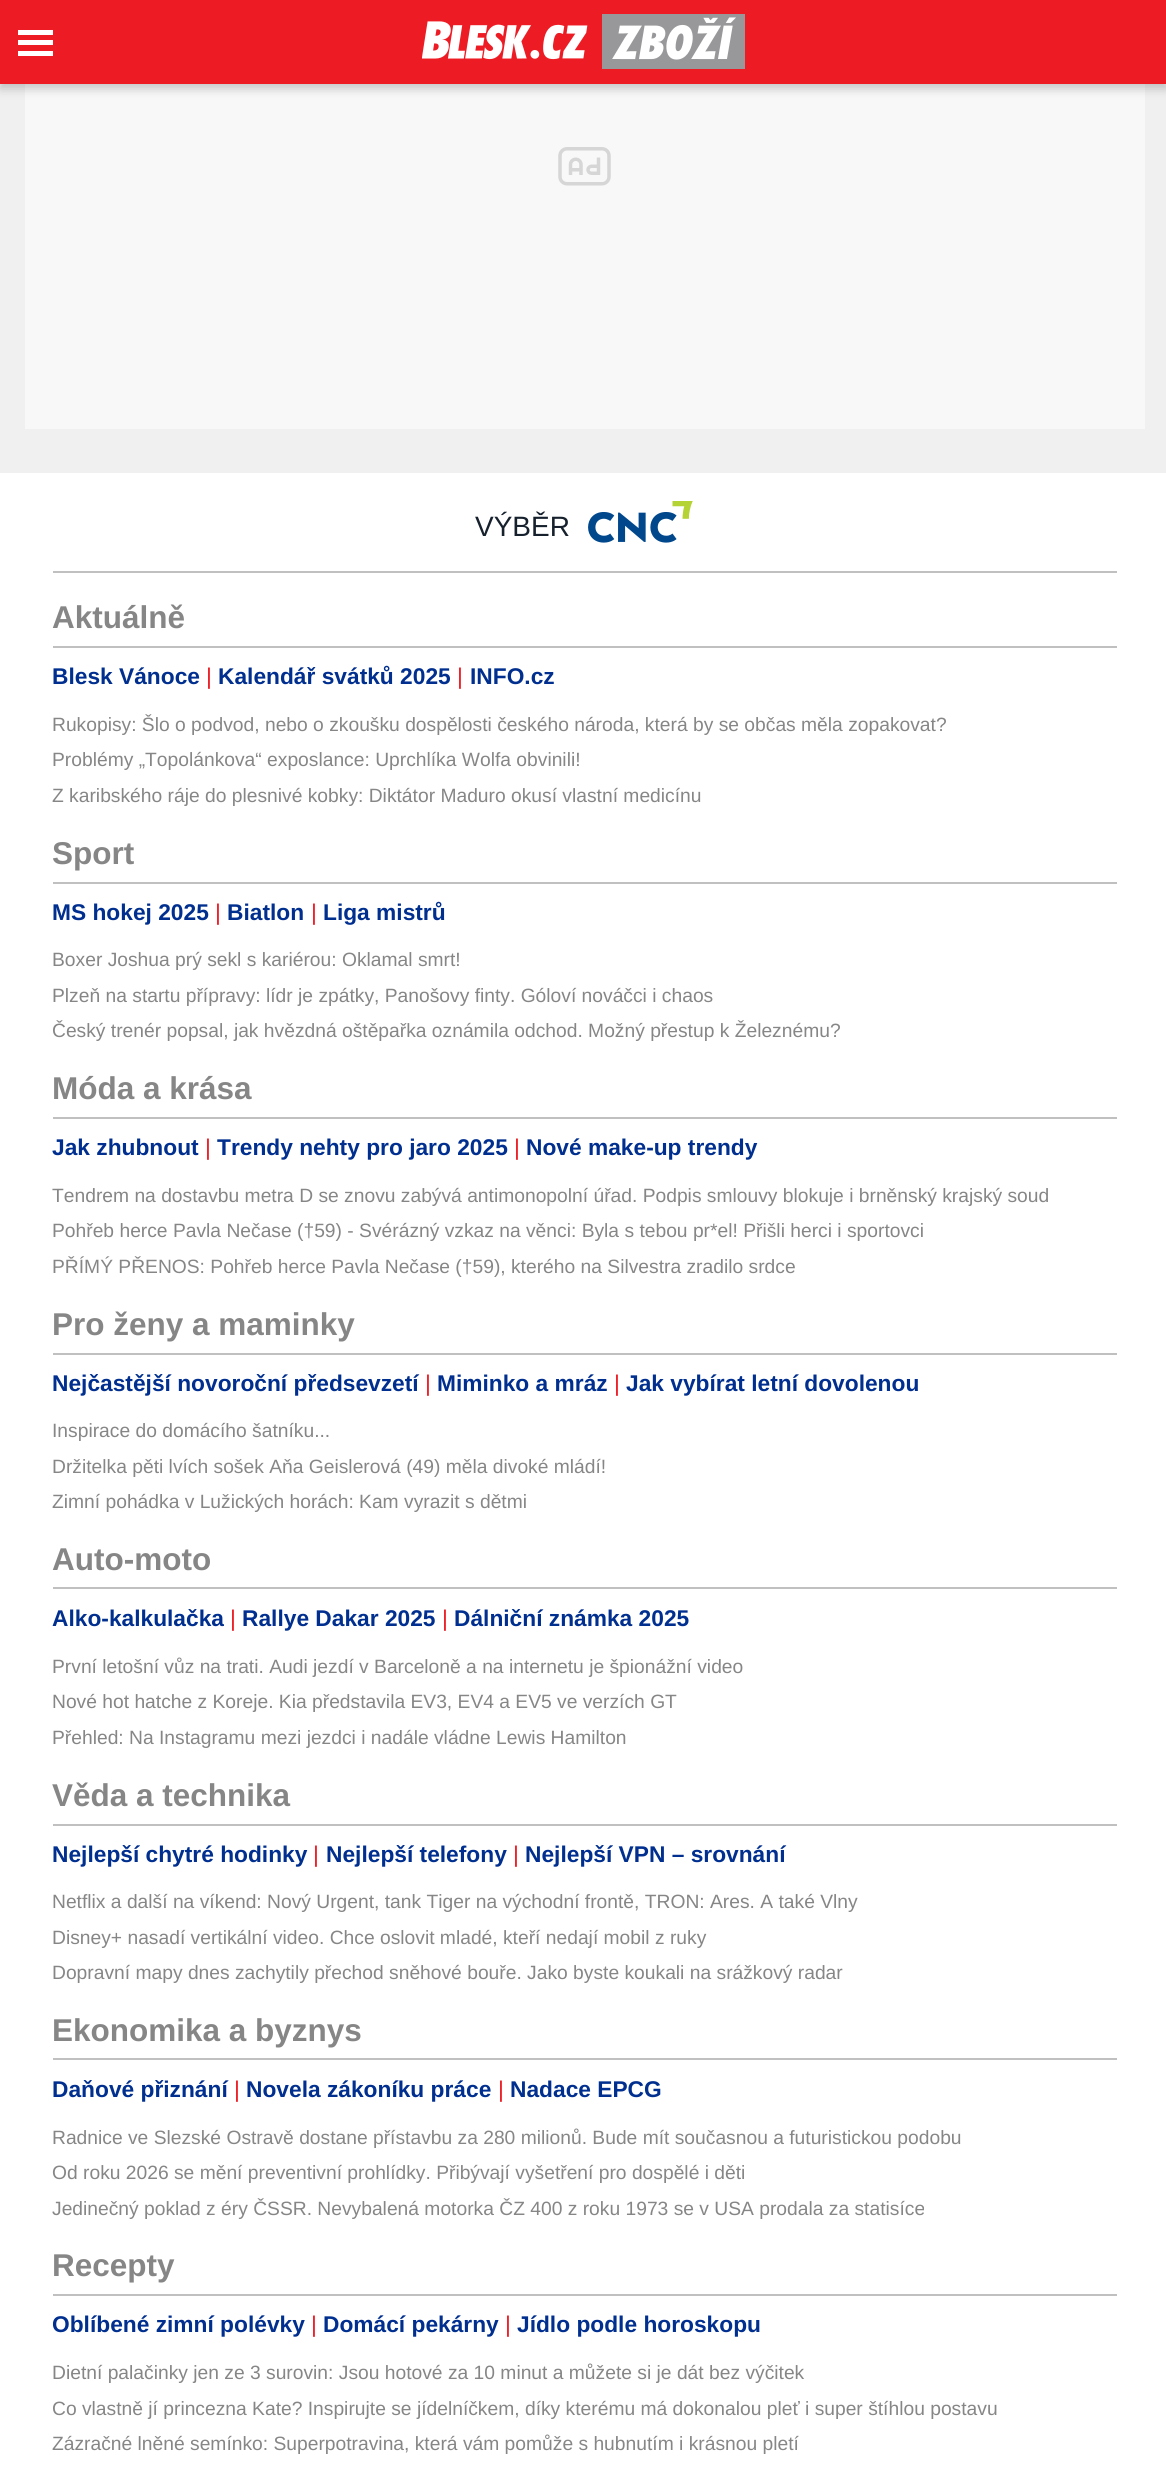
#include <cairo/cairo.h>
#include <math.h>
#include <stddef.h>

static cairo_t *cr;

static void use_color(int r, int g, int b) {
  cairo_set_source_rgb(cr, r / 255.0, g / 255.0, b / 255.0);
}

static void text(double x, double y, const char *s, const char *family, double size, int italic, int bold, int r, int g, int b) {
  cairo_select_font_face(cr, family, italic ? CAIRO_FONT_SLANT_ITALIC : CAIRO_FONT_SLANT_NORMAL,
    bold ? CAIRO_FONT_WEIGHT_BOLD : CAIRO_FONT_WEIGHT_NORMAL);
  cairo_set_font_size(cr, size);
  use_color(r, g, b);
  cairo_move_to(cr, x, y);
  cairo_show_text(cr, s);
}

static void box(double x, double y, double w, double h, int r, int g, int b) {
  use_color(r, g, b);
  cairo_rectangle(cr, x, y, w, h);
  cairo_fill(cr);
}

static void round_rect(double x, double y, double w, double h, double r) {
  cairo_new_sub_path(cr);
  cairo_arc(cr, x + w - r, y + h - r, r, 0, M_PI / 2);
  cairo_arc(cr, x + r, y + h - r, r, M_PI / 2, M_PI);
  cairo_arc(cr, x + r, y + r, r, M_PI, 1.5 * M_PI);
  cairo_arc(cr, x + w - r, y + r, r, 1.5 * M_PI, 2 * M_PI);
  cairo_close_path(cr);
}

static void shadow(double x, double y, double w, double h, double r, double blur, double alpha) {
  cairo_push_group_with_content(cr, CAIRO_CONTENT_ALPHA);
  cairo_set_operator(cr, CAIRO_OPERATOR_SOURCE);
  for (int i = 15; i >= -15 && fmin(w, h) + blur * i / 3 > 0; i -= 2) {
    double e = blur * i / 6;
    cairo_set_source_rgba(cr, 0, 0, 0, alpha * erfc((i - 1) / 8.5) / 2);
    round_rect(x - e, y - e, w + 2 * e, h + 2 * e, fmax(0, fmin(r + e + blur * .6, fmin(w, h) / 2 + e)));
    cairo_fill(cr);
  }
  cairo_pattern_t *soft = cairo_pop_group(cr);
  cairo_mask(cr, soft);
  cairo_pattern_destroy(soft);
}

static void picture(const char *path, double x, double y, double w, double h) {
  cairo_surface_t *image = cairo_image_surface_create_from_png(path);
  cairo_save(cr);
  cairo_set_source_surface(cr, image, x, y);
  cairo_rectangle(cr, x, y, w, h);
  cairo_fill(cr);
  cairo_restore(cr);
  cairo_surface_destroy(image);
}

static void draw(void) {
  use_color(240, 240, 240);
  cairo_paint(cr);
  box(25, 84, 1120, 345, 248, 248, 248);
  use_color(0, 0, 0);
  shadow(0, 5, 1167, 84, 0, 5, 0.2);
  box(0, 0, 1166, 84, 237, 28, 36);
  box(18, 51, 35, 5, 255, 255, 255);
  box(18, 30, 35, 5, 255, 255, 255);
  box(18, 40, 35, 5, 255, 255, 255);
  picture("img_01.png", 422, 14, 323, 55);
  picture("img_02.png", 558, 147, 53, 39);
  box(0, 473, 1166, 2004, 255, 255, 255);
  box(53, 571, 1064, 2, 192, 192, 192);
  picture("img_03.png", 588, 501, 105, 42);
  box(53, 646, 1064, 2, 192, 192, 192);
  box(53, 882, 1064, 2, 192, 192, 192);
  box(53, 1117, 1064, 2, 192, 192, 192);
  box(53, 1353, 1064, 2, 192, 192, 192);
  box(53, 1587, 1064, 2, 192, 192, 192);
  box(53, 1824, 1064, 2, 192, 192, 192);
  box(53, 2058, 1064, 2, 192, 192, 192);
  box(53, 2294, 1064, 2, 192, 192, 192);
  text(475, 536, "VÝBĚR", "Liberation Sans", 28, 0, 0, 22, 33, 45);
  text(52, 628, "Aktuálně", "Liberation Sans", 31.5, 0, 1, 134, 134, 134);
  text(52, 684, "Blesk Vánoce", "Liberation Sans", 22.75, 0, 1, 0, 47, 143);
  text(206, 684, "|", "Liberation Sans", 22.75, 0, 0, 237, 28, 36);
  text(218, 684, "Kalendář svátků 2025", "Liberation Sans", 22.75, 0, 1, 0, 47, 143);
  text(457, 684, "|", "Liberation Sans", 22.75, 0, 0, 237, 28, 36);
  text(470, 684, "INFO.cz", "Liberation Sans", 22.75, 0, 1, 0, 47, 143);
  text(52, 731, "Rukopisy: Šlo o podvod, nebo o zkoušku dospělosti českého národa, která by se občas měla zopakovat?", "Liberation Sans", 19.25, 0, 0, 134, 134, 134);
  text(52, 766, "Problémy „Topolánkova“ exposlance: Uprchlíka Wolfa obvinili!", "Liberation Sans", 19.25, 0, 0, 134, 134, 134);
  text(52, 802, "Z karibského ráje do plesnivé kobky: Diktátor Maduro okusí vlastní medicínu", "Liberation Sans", 19.25, 0, 0, 134, 134, 134);
  text(52, 864, "Sport", "Liberation Sans", 31.5, 0, 1, 134, 134, 134);
  text(52, 920, "MS hokej 2025", "Liberation Sans", 22.75, 0, 1, 0, 47, 143);
  text(215, 920, "|", "Liberation Sans", 22.75, 0, 0, 237, 28, 36);
  text(227, 920, "Biatlon", "Liberation Sans", 22.75, 0, 1, 0, 47, 143);
  text(311, 920, "|", "Liberation Sans", 22.75, 0, 0, 237, 28, 36);
  text(323, 920, "Liga mistrů", "Liberation Sans", 22.75, 0, 1, 0, 47, 143);
  text(52, 966, "Boxer Joshua prý sekl s kariérou: Oklamal smrt!", "Liberation Sans", 19.25, 0, 0, 134, 134, 134);
  text(52, 1002, "Plzeň na startu přípravy: lídr je zpátky, Panošovy finty. Góloví nováčci i chaos", "Liberation Sans", 19.25, 0, 0, 134, 134, 134);
  text(52, 1037, "Český trenér popsal, jak hvězdná oštěpařka oznámila odchod. Možný přestup k Železnému?", "Liberation Sans", 19.25, 0, 0, 134, 134, 134);
  text(52, 1099, "Móda a krása", "Liberation Sans", 31.5, 0, 1, 134, 134, 134);
  text(52, 1155, "Jak zhubnout", "Liberation Sans", 22.75, 0, 1, 0, 47, 143);
  text(205, 1155, "|", "Liberation Sans", 22.75, 0, 0, 237, 28, 36);
  text(217, 1155, "Trendy nehty pro jaro 2025", "Liberation Sans", 22.75, 0, 1, 0, 47, 143);
  text(514, 1155, "|", "Liberation Sans", 22.75, 0, 0, 237, 28, 36);
  text(526, 1155, "Nové make-up trendy", "Liberation Sans", 22.75, 0, 1, 0, 47, 143);
  text(52, 1202, "Tendrem na dostavbu metra D se znovu zabývá antimonopolní úřad. Podpis smlouvy blokuje i brněnský krajský soud", "Liberation Sans", 19.25, 0, 0, 134, 134, 134);
  text(52, 1237, "Pohřeb herce Pavla Nečase (†59) - Svérázný vzkaz na věnci: Byla s tebou pr*el! Přišli herci i sportovci", "Liberation Sans", 19.25, 0, 0, 134, 134, 134);
  text(52, 1273, "PŘÍMÝ PŘENOS: Pohřeb herce Pavla Nečase (†59), kterého na Silvestra zradilo srdce", "Liberation Sans", 19.25, 0, 0, 134, 134, 134);
  text(52, 1335, "Pro ženy a maminky", "Liberation Sans", 31.5, 0, 1, 134, 134, 134);
  text(52, 1391, "Nejčastější novoroční předsevzetí", "Liberation Sans", 22.75, 0, 1, 0, 47, 143);
  text(425, 1391, "|", "Liberation Sans", 22.75, 0, 0, 237, 28, 36);
  text(437, 1391, "Miminko a mráz", "Liberation Sans", 22.75, 0, 1, 0, 47, 143);
  text(614, 1391, "|", "Liberation Sans", 22.75, 0, 0, 237, 28, 36);
  text(626, 1391, "Jak vybírat letní dovolenou", "Liberation Sans", 22.75, 0, 1, 0, 47, 143);
  text(52, 1437, "Inspirace do domácího šatníku...", "Liberation Sans", 19.25, 0, 0, 134, 134, 134);
  text(52, 1473, "Držitelka pěti lvích sošek Aňa Geislerová (49) měla divoké mládí!", "Liberation Sans", 19.25, 0, 0, 134, 134, 134);
  text(52, 1508, "Zimní pohádka v Lužických horách: Kam vyrazit s dětmi", "Liberation Sans", 19.25, 0, 0, 134, 134, 134);
  text(52, 1570, "Auto-moto", "Liberation Sans", 31.5, 0, 1, 134, 134, 134);
  text(52, 1626, "Alko-kalkulačka", "Liberation Sans", 22.75, 0, 1, 0, 47, 143);
  text(230, 1626, "|", "Liberation Sans", 22.75, 0, 0, 237, 28, 36);
  text(242, 1626, "Rallye Dakar 2025", "Liberation Sans", 22.75, 0, 1, 0, 47, 143);
  text(442, 1626, "|", "Liberation Sans", 22.75, 0, 0, 237, 28, 36);
  text(454, 1626, "Dálniční známka 2025", "Liberation Sans", 22.75, 0, 1, 0, 47, 143);
  text(52, 1673, "První letošní vůz na trati. Audi jezdí v Barceloně a na internetu je špionážní video", "Liberation Sans", 19.25, 0, 0, 134, 134, 134);
  text(52, 1708, "Nové hot hatche z Koreje. Kia představila EV3, EV4 a EV5 ve verzích GT", "Liberation Sans", 19.25, 0, 0, 134, 134, 134);
  text(52, 1744, "Přehled: Na Instagramu mezi jezdci i nadále vládne Lewis Hamilton", "Liberation Sans", 19.25, 0, 0, 134, 134, 134);
  text(52, 1806, "Věda a technika", "Liberation Sans", 31.5, 0, 1, 134, 134, 134);
  text(52, 1862, "Nejlepší chytré hodinky", "Liberation Sans", 22.75, 0, 1, 0, 47, 143);
  text(313, 1862, "|", "Liberation Sans", 22.75, 0, 0, 237, 28, 36);
  text(326, 1862, "Nejlepší telefony", "Liberation Sans", 22.75, 0, 1, 0, 47, 143);
  text(513, 1862, "|", "Liberation Sans", 22.75, 0, 0, 237, 28, 36);
  text(525, 1862, "Nejlepší VPN – srovnání", "Liberation Sans", 22.75, 0, 1, 0, 47, 143);
  text(52, 1908, "Netflix a další na víkend: Nový Urgent, tank Tiger na východní frontě, TRON: Ares. A také Vlny", "Liberation Sans", 19.25, 0, 0, 134, 134, 134);
  text(52, 1944, "Disney+ nasadí vertikální video. Chce oslovit mladé, kteří nedají mobil z ruky", "Liberation Sans", 19.25, 0, 0, 134, 134, 134);
  text(52, 1979, "Dopravní mapy dnes zachytily přechod sněhové bouře. Jako byste koukali na srážkový radar", "Liberation Sans", 19.25, 0, 0, 134, 134, 134);
  text(52, 2041, "Ekonomika a byznys", "Liberation Sans", 31.5, 0, 1, 134, 134, 134);
  text(52, 2097, "Daňové přiznání", "Liberation Sans", 22.75, 0, 1, 0, 47, 143);
  text(234, 2097, "|", "Liberation Sans", 22.75, 0, 0, 237, 28, 36);
  text(246, 2097, "Novela zákoníku práce", "Liberation Sans", 22.75, 0, 1, 0, 47, 143);
  text(498, 2097, "|", "Liberation Sans", 22.75, 0, 0, 237, 28, 36);
  text(510, 2097, "Nadace EPCG", "Liberation Sans", 22.75, 0, 1, 0, 47, 143);
  text(52, 2144, "Radnice ve Slezské Ostravě dostane přístavbu za 280 milionů. Bude mít současnou a futuristickou podobu", "Liberation Sans", 19.25, 0, 0, 134, 134, 134);
  text(52, 2179, "Od roku 2026 se mění preventivní prohlídky. Přibývají vyšetření pro dospělé i děti", "Liberation Sans", 19.25, 0, 0, 134, 134, 134);
  text(52, 2215, "Jedinečný poklad z éry ČSSR. Nevybalená motorka ČZ 400 z roku 1973 se v USA prodala za statisíce", "Liberation Sans", 19.25, 0, 0, 134, 134, 134);
  text(52, 2276, "Recepty", "Liberation Sans", 31.5, 0, 1, 134, 134, 134);
  text(52, 2332, "Oblíbené zimní polévky", "Liberation Sans", 22.75, 0, 1, 0, 47, 143);
  text(311, 2332, "|", "Liberation Sans", 22.75, 0, 0, 237, 28, 36);
  text(323, 2332, "Domácí pekárny", "Liberation Sans", 22.75, 0, 1, 0, 47, 143);
  text(505, 2332, "|", "Liberation Sans", 22.75, 0, 0, 237, 28, 36);
  text(517, 2332, "Jídlo podle horoskopu", "Liberation Sans", 22.75, 0, 1, 0, 47, 143);
  text(52, 2379, "Dietní palačinky jen ze 3 surovin: Jsou hotové za 10 minut a můžete si je dát bez výčitek", "Liberation Sans", 19.25, 0, 0, 134, 134, 134);
  text(52, 2415, "Co vlastně jí princezna Kate? Inspirujte se jídelníčkem, díky kterému má dokonalou pleť i super štíhlou postavu", "Liberation Sans", 19.25, 0, 0, 134, 134, 134);
  text(52, 2450, "Zázračné lněné semínko: Superpotravina, která vám pomůže s hubnutím i krásnou pletí", "Liberation Sans", 19.25, 0, 0, 134, 134, 134);
}

int main(void) {
  cairo_surface_t *surface = cairo_image_surface_create(CAIRO_FORMAT_RGB24, 1166, 2477);
  cr = cairo_create(surface);
  cairo_font_options_t *options = cairo_font_options_create();
  cairo_font_options_set_hint_metrics(options, CAIRO_HINT_METRICS_OFF);
  cairo_font_options_set_hint_style(options, CAIRO_HINT_STYLE_NONE);
  cairo_set_font_options(cr, options);
  cairo_set_miter_limit(cr, 4);
  draw();
  cairo_surface_write_to_png(surface, "out.png");
  cairo_font_options_destroy(options);
  cairo_destroy(cr);
  cairo_surface_destroy(surface);
  return 0;
}
